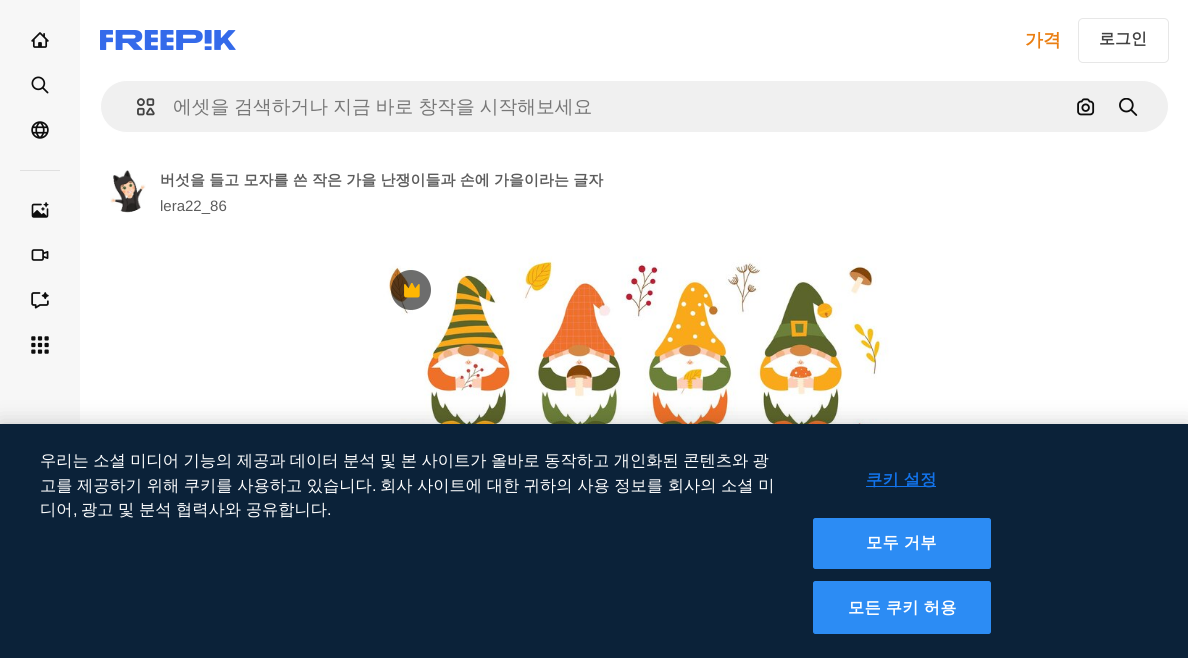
#include <cairo/cairo.h>
#include <math.h>
#include <stddef.h>

static cairo_t *cr;

static void use_color(int r, int g, int b) {
  cairo_set_source_rgb(cr, r / 255.0, g / 255.0, b / 255.0);
}

static void text(double x, double y, const char *s, const char *family, double size, int italic, int bold, int r, int g, int b) {
  cairo_select_font_face(cr, family, italic ? CAIRO_FONT_SLANT_ITALIC : CAIRO_FONT_SLANT_NORMAL,
    bold ? CAIRO_FONT_WEIGHT_BOLD : CAIRO_FONT_WEIGHT_NORMAL);
  cairo_set_font_size(cr, size);
  use_color(r, g, b);
  cairo_move_to(cr, x, y);
  cairo_show_text(cr, s);
}

static void spaced_text(double x, double y, const char *s, double letter, double word) {
  cairo_move_to(cr, x, y);
  while (*s) {
    char ch[5] = {0};
    int n = 0;
    do ch[n++] = *s++; while ((*s & 0xC0) == 0x80);
    cairo_show_text(cr, ch);
    cairo_rel_move_to(cr, letter + word * (*ch == ' '), 0);
  }
}

static void box(double x, double y, double w, double h, int r, int g, int b) {
  use_color(r, g, b);
  cairo_rectangle(cr, x, y, w, h);
  cairo_fill(cr);
}

static void round_rect(double x, double y, double w, double h, double r) {
  cairo_new_sub_path(cr);
  cairo_arc(cr, x + w - r, y + h - r, r, 0, M_PI / 2);
  cairo_arc(cr, x + r, y + h - r, r, M_PI / 2, M_PI);
  cairo_arc(cr, x + r, y + r, r, M_PI, 1.5 * M_PI);
  cairo_arc(cr, x + w - r, y + r, r, 1.5 * M_PI, 2 * M_PI);
  cairo_close_path(cr);
}

static void shadow(double x, double y, double w, double h, double r, double blur, double alpha) {
  cairo_push_group_with_content(cr, CAIRO_CONTENT_ALPHA);
  cairo_set_operator(cr, CAIRO_OPERATOR_SOURCE);
  for (int i = 15; i >= -15 && fmin(w, h) + blur * i / 3 > 0; i -= 2) {
    double e = blur * i / 6;
    cairo_set_source_rgba(cr, 0, 0, 0, alpha * erfc((i - 1) / 8.5) / 2);
    round_rect(x - e, y - e, w + 2 * e, h + 2 * e, fmax(0, fmin(r + e + blur * .6, fmin(w, h) / 2 + e)));
    cairo_fill(cr);
  }
  cairo_pattern_t *soft = cairo_pop_group(cr);
  cairo_mask(cr, soft);
  cairo_pattern_destroy(soft);
}

static void picture(const char *path, double x, double y, double w, double h) {
  cairo_surface_t *image = cairo_image_surface_create_from_png(path);
  cairo_save(cr);
  cairo_set_source_surface(cr, image, x, y);
  cairo_rectangle(cr, x, y, w, h);
  cairo_fill(cr);
  cairo_restore(cr);
  cairo_surface_destroy(image);
}

static void draw(void) {
  use_color(255, 255, 255);
  cairo_paint(cr);
  box(0, 0, 80, 424, 247, 247, 247);
  picture("img_01.png", 31, 32, 18, 16);
  picture("img_02.png", 31, 76, 18, 18);
  picture("img_03.png", 31, 121, 18, 18);
  box(20, 170, 40, 1, 224, 224, 224);
  picture("img_04.png", 31, 202, 18, 16);
  picture("img_05.png", 31, 249, 18, 12);
  picture("img_06.png", 31, 292, 18, 17);
  picture("img_07.png", 31, 336, 18, 18);
  picture("img_08.png", 100, 30, 136, 20);
  round_rect(1078.5, 18.5, 90, 44, 4.5);
  use_color(231, 231, 231);
  cairo_set_line_width(cr, 1);
  cairo_stroke(cr);
  use_color(240, 240, 240);
  round_rect(100.5, 80.5, 1068, 52, 26);
  cairo_fill_preserve(cr);
  use_color(255, 255, 255);
  cairo_stroke(cr);
  picture("img_09.png", 136, 98, 19, 18);
  picture("img_10.png", 1077, 98, 18, 18);
  picture("img_11.png", 1119, 98, 19, 18);
  picture("img_12.png", 110, 170, 36, 43);
  picture("img_13.png", 378, 256, 511, 168);
  cairo_set_source_rgba(cr, 0.051, 0.051, 0.051, 0.6);
  cairo_arc(cr, 411, 290, 20, 0, 2 * M_PI);
  cairo_fill(cr);
  picture("img_14.png", 404, 283, 16, 15);
  use_color(0, 0, 0);
  shadow(0, 424, 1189, 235, 0, 11, 0.2);
  box(0, 424, 1188, 234, 11, 34, 57);
  box(866, 486, 70, 1, 18, 115, 235);
  use_color(44, 140, 244);
  round_rect(813.5, 518.5, 177, 50, 2);
  cairo_fill_preserve(cr);
  cairo_stroke(cr);
  round_rect(813.5, 581.5, 177, 52, 2);
  cairo_fill_preserve(cr);
  cairo_stroke(cr);
  text(1025, 46, "가격", "WenQuanYi Zen Hei", 18, 0, 1, 234, 126, 17);
  text(1099, 44, "로그인", "WenQuanYi Zen Hei", 16, 0, 1, 66, 66, 66);
  cairo_select_font_face(cr, "WenQuanYi Zen Hei Medium", CAIRO_FONT_SLANT_NORMAL, CAIRO_FONT_WEIGHT_NORMAL);
  cairo_set_font_size(cr, 18.75);
  use_color(119, 119, 119);
  spaced_text(173, 113, "에셋을 검색하거나 지금 바로 창작을 시작해보세요", 0, -0.5);
  cairo_select_font_face(cr, "WenQuanYi Zen Hei", CAIRO_FONT_SLANT_NORMAL, CAIRO_FONT_WEIGHT_BOLD);
  cairo_set_font_size(cr, 15);
  use_color(92, 92, 92);
  spaced_text(160, 185, "버섯을 들고 모자를 쓴 작은 가을 난쟁이들과 손에 가을이라는 글자", 0, -0.25);
  text(160, 211, "lera22_86", "Liberation Sans", 15, 0, 0, 92, 92, 92);
  cairo_select_font_face(cr, "WenQuanYi Zen Hei Medium", CAIRO_FONT_SLANT_NORMAL, CAIRO_FONT_WEIGHT_NORMAL);
  cairo_set_font_size(cr, 16.25);
  use_color(255, 255, 255);
  spaced_text(40, 466, "우리는 소셜 미디어 기능의 제공과 데이터 분석 및 본 사이트가 올바로 동작하고 개인화된 콘텐츠와 광", 0, -0.4);
  spaced_text(40, 491, "고를 제공하기 위해 쿠키를 사용하고 있습니다", 0, -0.25);
  text(372, 491, ".", "Liberation Sans", 16.25, 0, 0, 255, 255, 255);
  cairo_select_font_face(cr, "WenQuanYi Zen Hei Medium", CAIRO_FONT_SLANT_NORMAL, CAIRO_FONT_WEIGHT_NORMAL);
  spaced_text(380, 491, "회사 사이트에 대한 귀하의 사용 정보를 회사의 소셜 미", 0, -0.25);
  text(40, 515, "디어", "WenQuanYi Zen Hei Medium", 16.25, 0, 0, 255, 255, 255);
  text(73, 515, ",", "Liberation Sans", 16.25, 0, 0, 255, 255, 255);
  cairo_select_font_face(cr, "WenQuanYi Zen Hei Medium", CAIRO_FONT_SLANT_NORMAL, CAIRO_FONT_WEIGHT_NORMAL);
  spaced_text(81, 515, "광고 및 분석 협력사와 공유합니다", 0, -0.25);
  text(327, 515, ".", "Liberation Sans", 16.25, 0, 0, 255, 255, 255);
  cairo_select_font_face(cr, "WenQuanYi Zen Hei", CAIRO_FONT_SLANT_NORMAL, CAIRO_FONT_WEIGHT_BOLD);
  use_color(18, 115, 235);
  spaced_text(866, 485, "쿠키 설정", 0.25, -0.25);
  use_color(255, 255, 255);
  spaced_text(866, 548, "모두 거부", 0.25, -0.25);
  spaced_text(848, 613, "모든 쿠키 허용", 0.25, -0.25);
}

int main(void) {
  cairo_surface_t *surface = cairo_image_surface_create(CAIRO_FORMAT_RGB24, 1188, 658);
  cr = cairo_create(surface);
  cairo_font_options_t *options = cairo_font_options_create();
  cairo_font_options_set_hint_metrics(options, CAIRO_HINT_METRICS_OFF);
  cairo_font_options_set_hint_style(options, CAIRO_HINT_STYLE_NONE);
  cairo_set_font_options(cr, options);
  cairo_set_miter_limit(cr, 4);
  draw();
  cairo_surface_write_to_png(surface, "out.png");
  cairo_font_options_destroy(options);
  cairo_destroy(cr);
  cairo_surface_destroy(surface);
  return 0;
}
